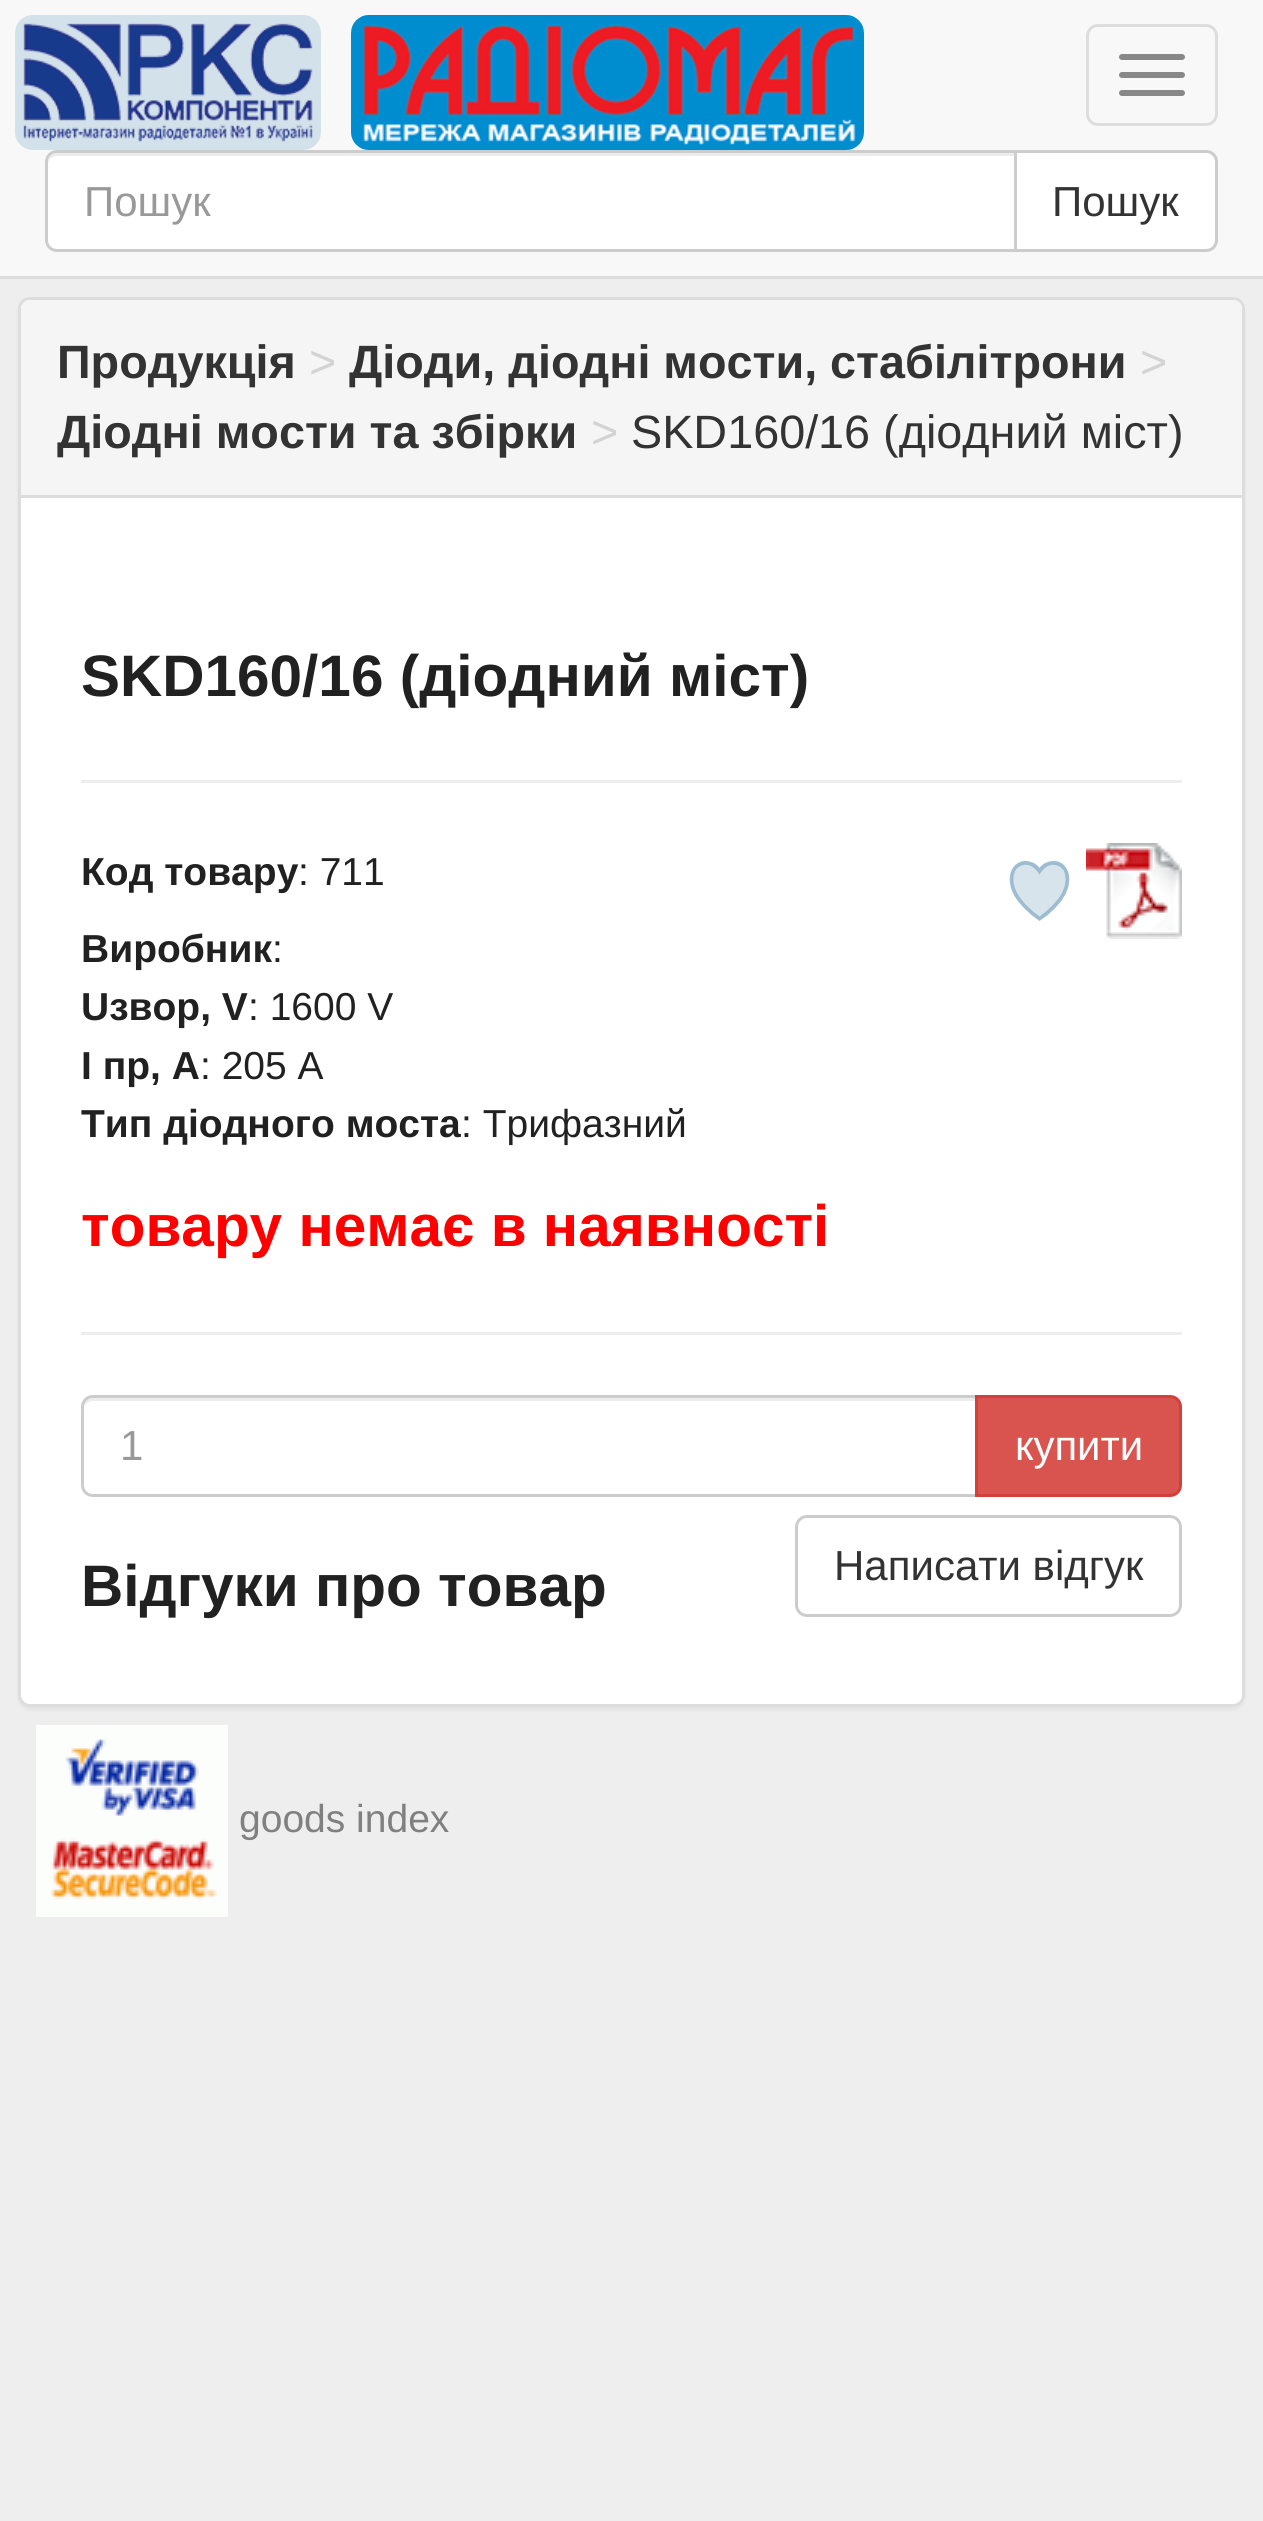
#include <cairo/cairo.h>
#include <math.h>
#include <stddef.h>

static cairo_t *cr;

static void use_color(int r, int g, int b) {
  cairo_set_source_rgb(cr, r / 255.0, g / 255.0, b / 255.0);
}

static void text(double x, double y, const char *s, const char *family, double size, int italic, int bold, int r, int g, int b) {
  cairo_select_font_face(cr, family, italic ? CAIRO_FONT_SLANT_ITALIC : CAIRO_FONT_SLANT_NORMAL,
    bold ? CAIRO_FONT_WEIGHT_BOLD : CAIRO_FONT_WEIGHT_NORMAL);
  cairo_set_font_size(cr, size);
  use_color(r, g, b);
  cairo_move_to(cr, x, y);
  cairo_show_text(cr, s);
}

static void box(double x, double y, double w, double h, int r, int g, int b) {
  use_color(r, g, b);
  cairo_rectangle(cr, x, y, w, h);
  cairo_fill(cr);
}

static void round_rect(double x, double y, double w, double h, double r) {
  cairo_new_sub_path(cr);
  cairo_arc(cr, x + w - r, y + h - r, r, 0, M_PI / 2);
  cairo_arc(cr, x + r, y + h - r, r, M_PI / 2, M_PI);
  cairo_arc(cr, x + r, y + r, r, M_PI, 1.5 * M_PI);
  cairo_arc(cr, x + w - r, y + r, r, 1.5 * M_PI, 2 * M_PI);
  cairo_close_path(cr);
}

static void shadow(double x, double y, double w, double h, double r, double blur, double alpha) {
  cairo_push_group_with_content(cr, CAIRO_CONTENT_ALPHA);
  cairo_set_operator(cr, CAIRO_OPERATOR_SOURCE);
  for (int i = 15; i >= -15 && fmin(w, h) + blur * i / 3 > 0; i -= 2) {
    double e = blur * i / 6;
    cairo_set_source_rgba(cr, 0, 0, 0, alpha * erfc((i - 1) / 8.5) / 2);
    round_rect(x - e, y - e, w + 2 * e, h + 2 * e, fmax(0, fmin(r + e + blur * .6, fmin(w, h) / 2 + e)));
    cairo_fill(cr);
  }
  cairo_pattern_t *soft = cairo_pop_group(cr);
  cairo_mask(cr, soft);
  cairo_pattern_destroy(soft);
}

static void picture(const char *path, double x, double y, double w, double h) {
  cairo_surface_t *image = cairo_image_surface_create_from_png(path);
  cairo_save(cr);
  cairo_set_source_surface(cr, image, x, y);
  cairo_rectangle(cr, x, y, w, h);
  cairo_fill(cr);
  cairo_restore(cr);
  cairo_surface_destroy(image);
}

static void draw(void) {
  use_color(238, 238, 238);
  cairo_paint(cr);
  box(0, 0, 1263, 276, 248, 248, 248);
  box(0, 276, 1263, 3, 221, 221, 221);
  picture("img_01.png", 15, 15, 306, 135);
  picture("img_02.png", 351, 15, 513, 135);
  round_rect(1087.5, 25.5, 129, 99, 10.5);
  cairo_set_line_width(cr, 3);
  cairo_stroke(cr);
  use_color(136, 136, 136);
  round_rect(1119, 54, 66, 6, 3);
  cairo_fill(cr);
  round_rect(1119, 72, 66, 6, 3);
  cairo_fill(cr);
  round_rect(1119, 90, 66, 6, 3);
  cairo_fill(cr);
  use_color(255, 255, 255);
  cairo_new_path(cr);
  cairo_move_to(cr, 57, 150);
  cairo_line_to(cr, 1017, 150);
  cairo_line_to(cr, 1017, 252);
  cairo_line_to(cr, 57, 252);
  cairo_curve_to(cr, 50.5, 252, 45, 246.5, 45, 240);
  cairo_line_to(cr, 45, 162);
  cairo_curve_to(cr, 45, 155.5, 50.5, 150, 57, 150);
  cairo_close_path(cr);
  cairo_fill(cr);
  use_color(236, 236, 236);
  cairo_new_path(cr);
  cairo_move_to(cr, 57, 156);
  cairo_line_to(cr, 1014, 156);
  cairo_line_to(cr, 1014, 153);
  cairo_line_to(cr, 57, 153);
  cairo_curve_to(cr, 50, 153, 48, 159, 48, 165);
  cairo_curve_to(cr, 48, 160, 52, 156, 57, 156);
  cairo_close_path(cr);
  cairo_fill(cr);
  cairo_new_path(cr);
  cairo_move_to(cr, 57, 151.5);
  cairo_line_to(cr, 1015.5, 151.5);
  cairo_line_to(cr, 1015.5, 250.5);
  cairo_line_to(cr, 57, 250.5);
  cairo_curve_to(cr, 51, 250.5, 46.5, 246, 46.5, 240);
  cairo_line_to(cr, 46.5, 162);
  cairo_curve_to(cr, 46.5, 156, 51, 151.5, 57, 151.5);
  cairo_close_path(cr);
  use_color(204, 204, 204);
  cairo_stroke(cr);
  use_color(255, 255, 255);
  cairo_new_path(cr);
  cairo_move_to(cr, 1015.5, 151.5);
  cairo_line_to(cr, 1206, 151.5);
  cairo_curve_to(cr, 1212, 151.5, 1216.5, 156, 1216.5, 162);
  cairo_line_to(cr, 1216.5, 240);
  cairo_curve_to(cr, 1216.5, 246, 1212, 250.5, 1206, 250.5);
  cairo_line_to(cr, 1015.5, 250.5);
  cairo_close_path(cr);
  cairo_fill_preserve(cr);
  use_color(204, 204, 204);
  cairo_stroke(cr);
  use_color(0, 0, 0);
  shadow(18, 300, 1227, 1410, 12, 1.5, 0.05);
  use_color(255, 255, 255);
  round_rect(19.5, 298.5, 1224, 1407, 10.5);
  cairo_fill_preserve(cr);
  use_color(221, 221, 221);
  cairo_stroke(cr);
  use_color(245, 245, 245);
  cairo_new_path(cr);
  cairo_move_to(cr, 30, 300);
  cairo_line_to(cr, 1233, 300);
  cairo_curve_to(cr, 1238, 300, 1242, 304, 1242, 309);
  cairo_line_to(cr, 1242, 498);
  cairo_line_to(cr, 21, 498);
  cairo_line_to(cr, 21, 309);
  cairo_curve_to(cr, 21, 304, 25, 300, 30, 300);
  cairo_close_path(cr);
  cairo_fill(cr);
  box(21, 495, 1221, 3, 221, 221, 221);
  box(81, 780, 1101, 3, 238, 238, 238);
  picture("img_03.png", 1009, 861, 61, 60);
  picture("img_04.png", 1086, 843, 96, 96);
  box(81, 1332, 1101, 3, 238, 238, 238);
  use_color(236, 236, 236);
  cairo_new_path(cr);
  cairo_move_to(cr, 93, 1401);
  cairo_line_to(cr, 975, 1401);
  cairo_line_to(cr, 975, 1398);
  cairo_line_to(cr, 93, 1398);
  cairo_curve_to(cr, 86, 1398, 84, 1404, 84, 1410);
  cairo_curve_to(cr, 84, 1405, 88, 1401, 93, 1401);
  cairo_close_path(cr);
  cairo_fill(cr);
  cairo_new_path(cr);
  cairo_move_to(cr, 93, 1396.5);
  cairo_line_to(cr, 976.5, 1396.5);
  cairo_line_to(cr, 976.5, 1495.5);
  cairo_line_to(cr, 93, 1495.5);
  cairo_curve_to(cr, 87, 1495.5, 82.5, 1491, 82.5, 1485);
  cairo_line_to(cr, 82.5, 1407);
  cairo_curve_to(cr, 82.5, 1401, 87, 1396.5, 93, 1396.5);
  cairo_close_path(cr);
  use_color(204, 204, 204);
  cairo_stroke(cr);
  use_color(217, 83, 79);
  cairo_new_path(cr);
  cairo_move_to(cr, 976.5, 1396.5);
  cairo_line_to(cr, 1170, 1396.5);
  cairo_curve_to(cr, 1176, 1396.5, 1180.5, 1401, 1180.5, 1407);
  cairo_line_to(cr, 1180.5, 1485);
  cairo_curve_to(cr, 1180.5, 1491, 1176, 1495.5, 1170, 1495.5);
  cairo_line_to(cr, 976.5, 1495.5);
  cairo_close_path(cr);
  cairo_fill_preserve(cr);
  use_color(212, 63, 58);
  cairo_stroke(cr);
  round_rect(796.5, 1516.5, 384, 99, 10.5);
  use_color(204, 204, 204);
  cairo_stroke(cr);
  picture("img_05.png", 36, 1725, 192, 192);
  text(84, 216, "Пошук", "Liberation Sans", 42, 0, 0, 153, 153, 153);
  text(1052, 216, "Пошук", "Liberation Sans", 42, 0, 0, 51, 51, 51);
  text(57, 378, "Продукція", "Liberation Sans", 46.75, 0, 1, 51, 51, 51);
  text(309, 378, ">", "Liberation Sans", 46.75, 0, 0, 211, 211, 211);
  text(349, 378, "Діоди, діодні мости, стабілітрони", "Liberation Sans", 46.75, 0, 1, 51, 51, 51);
  text(1140, 378, ">", "Liberation Sans", 46.75, 0, 0, 211, 211, 211);
  text(57, 448, "Діодні мости та збірки", "Liberation Sans", 46.75, 0, 1, 51, 51, 51);
  text(591, 448, ">", "Liberation Sans", 46.75, 0, 0, 211, 211, 211);
  text(631, 448, "SKD160/16 (діодний міст)", "Liberation Sans", 46.75, 0, 0, 51, 51, 51);
  text(81, 696, "SKD160/16 (діодний міст)", "Liberation Sans", 58.5, 0, 1, 33, 33, 33);
  text(81, 885, "Код товару", "Liberation Sans", 39, 0, 1, 33, 33, 33);
  text(298, 885, ": 711", "Liberation Sans", 39, 0, 0, 33, 33, 33);
  text(81, 962, "Виробник", "Liberation Sans", 39, 0, 1, 33, 33, 33);
  text(272, 962, ":", "Liberation Sans", 39, 0, 0, 33, 33, 33);
  text(81, 1020, "Uзвор, V", "Liberation Sans", 39, 0, 1, 33, 33, 33);
  text(248, 1020, ": 1600 V", "Liberation Sans", 39, 0, 0, 33, 33, 33);
  text(81, 1079, "I пр, A", "Liberation Sans", 39, 0, 1, 33, 33, 33);
  text(200, 1079, ": 205 A", "Liberation Sans", 39, 0, 0, 33, 33, 33);
  text(81, 1137, "Тип діодного моста", "Liberation Sans", 39, 0, 1, 33, 33, 33);
  text(461, 1137, ": Трифазний", "Liberation Sans", 39, 0, 0, 33, 33, 33);
  text(81, 1246, "товару немає в наявності", "Liberation Sans", 58.5, 0, 1, 255, 0, 0);
  text(120, 1460, "1", "Liberation Sans", 42, 0, 0, 153, 153, 153);
  text(1015, 1460, "купити", "Liberation Sans", 42, 0, 0, 255, 255, 255);
  text(81, 1606, "Відгуки про товар", "Liberation Sans", 58.5, 0, 1, 33, 33, 33);
  text(834, 1580, "Написати відгук", "Liberation Sans", 42, 0, 0, 51, 51, 51);
  text(239, 1832, "goods index", "Liberation Sans", 39, 0, 0, 128, 128, 128);
}

int main(void) {
  cairo_surface_t *surface = cairo_image_surface_create(CAIRO_FORMAT_RGB24, 1263, 2521);
  cr = cairo_create(surface);
  cairo_font_options_t *options = cairo_font_options_create();
  cairo_font_options_set_hint_metrics(options, CAIRO_HINT_METRICS_OFF);
  cairo_font_options_set_hint_style(options, CAIRO_HINT_STYLE_NONE);
  cairo_set_font_options(cr, options);
  cairo_set_miter_limit(cr, 4);
  draw();
  cairo_surface_write_to_png(surface, "out.png");
  cairo_font_options_destroy(options);
  cairo_destroy(cr);
  cairo_surface_destroy(surface);
  return 0;
}
